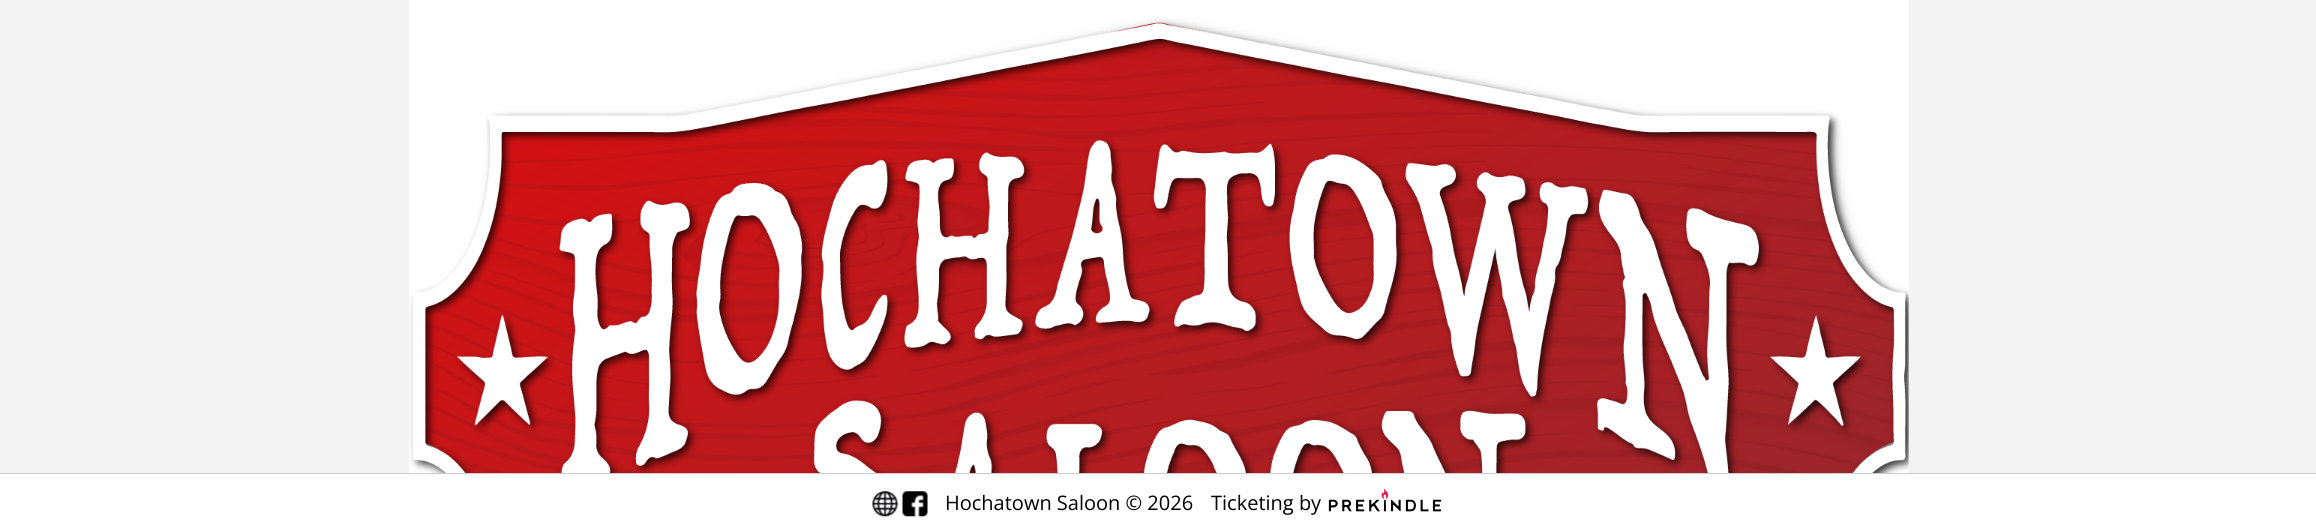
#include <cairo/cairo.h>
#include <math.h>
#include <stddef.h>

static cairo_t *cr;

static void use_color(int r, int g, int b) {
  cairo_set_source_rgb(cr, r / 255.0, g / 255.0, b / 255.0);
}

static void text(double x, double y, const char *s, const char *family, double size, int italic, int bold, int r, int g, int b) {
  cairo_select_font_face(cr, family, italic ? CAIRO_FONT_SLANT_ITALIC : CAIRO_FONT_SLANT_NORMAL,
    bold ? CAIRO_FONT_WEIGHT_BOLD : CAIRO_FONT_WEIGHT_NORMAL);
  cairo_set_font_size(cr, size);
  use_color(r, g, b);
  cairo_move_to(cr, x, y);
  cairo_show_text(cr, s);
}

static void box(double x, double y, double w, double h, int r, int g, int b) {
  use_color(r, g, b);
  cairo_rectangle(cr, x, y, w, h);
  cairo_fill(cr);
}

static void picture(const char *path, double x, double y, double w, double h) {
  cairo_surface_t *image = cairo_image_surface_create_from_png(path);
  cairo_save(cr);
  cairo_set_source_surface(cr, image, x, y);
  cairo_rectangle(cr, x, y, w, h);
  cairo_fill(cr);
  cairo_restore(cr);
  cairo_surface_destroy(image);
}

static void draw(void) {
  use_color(243, 243, 243);
  cairo_paint(cr);
  box(409, 0, 1500, 473, 255, 255, 255);
  picture("img_01.png", 410, 18, 1499, 455);
  box(0, 474, 2316, 54, 255, 255, 255);
  box(0, 473, 2316, 1, 204, 204, 204);
  picture("img_02.png", 872, 491, 26, 26);
  picture("img_03.png", 902, 491, 26, 26);
  picture("img_04.png", 1328, 488, 114, 24);
  text(945, 510, "Hochatown Saloon © 2026", "Open Sans", 20, 0, 0, 0, 0, 0);
  text(1211, 510, "Ticketing by", "Open Sans", 20, 0, 0, 0, 0, 0);
}

int main(void) {
  cairo_surface_t *surface = cairo_image_surface_create(CAIRO_FORMAT_RGB24, 2316, 528);
  cr = cairo_create(surface);
  cairo_font_options_t *options = cairo_font_options_create();
  cairo_font_options_set_hint_metrics(options, CAIRO_HINT_METRICS_OFF);
  cairo_font_options_set_hint_style(options, CAIRO_HINT_STYLE_NONE);
  cairo_set_font_options(cr, options);
  cairo_set_miter_limit(cr, 4);
  draw();
  cairo_surface_write_to_png(surface, "out.png");
  cairo_font_options_destroy(options);
  cairo_destroy(cr);
  cairo_surface_destroy(surface);
  return 0;
}
